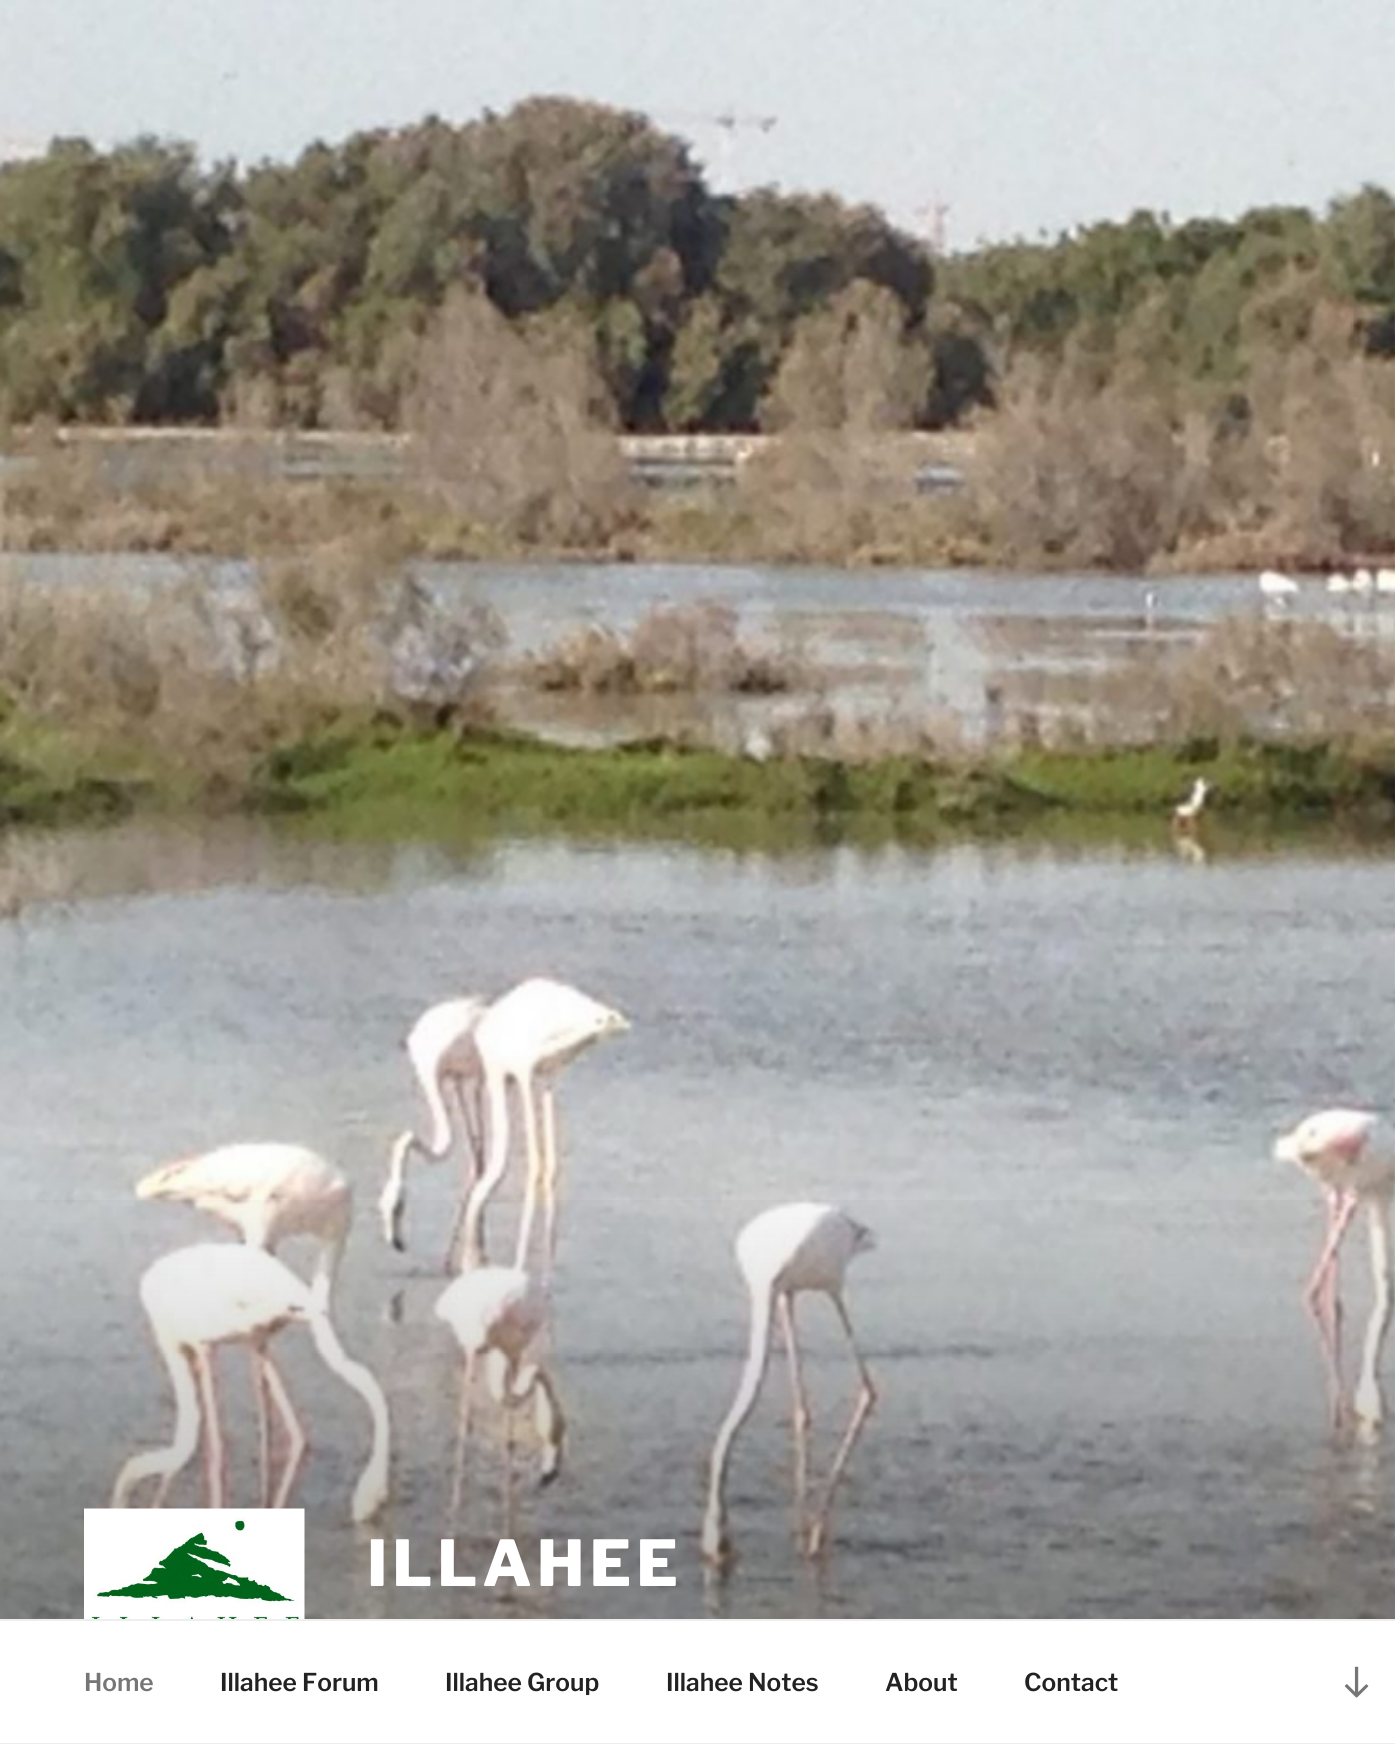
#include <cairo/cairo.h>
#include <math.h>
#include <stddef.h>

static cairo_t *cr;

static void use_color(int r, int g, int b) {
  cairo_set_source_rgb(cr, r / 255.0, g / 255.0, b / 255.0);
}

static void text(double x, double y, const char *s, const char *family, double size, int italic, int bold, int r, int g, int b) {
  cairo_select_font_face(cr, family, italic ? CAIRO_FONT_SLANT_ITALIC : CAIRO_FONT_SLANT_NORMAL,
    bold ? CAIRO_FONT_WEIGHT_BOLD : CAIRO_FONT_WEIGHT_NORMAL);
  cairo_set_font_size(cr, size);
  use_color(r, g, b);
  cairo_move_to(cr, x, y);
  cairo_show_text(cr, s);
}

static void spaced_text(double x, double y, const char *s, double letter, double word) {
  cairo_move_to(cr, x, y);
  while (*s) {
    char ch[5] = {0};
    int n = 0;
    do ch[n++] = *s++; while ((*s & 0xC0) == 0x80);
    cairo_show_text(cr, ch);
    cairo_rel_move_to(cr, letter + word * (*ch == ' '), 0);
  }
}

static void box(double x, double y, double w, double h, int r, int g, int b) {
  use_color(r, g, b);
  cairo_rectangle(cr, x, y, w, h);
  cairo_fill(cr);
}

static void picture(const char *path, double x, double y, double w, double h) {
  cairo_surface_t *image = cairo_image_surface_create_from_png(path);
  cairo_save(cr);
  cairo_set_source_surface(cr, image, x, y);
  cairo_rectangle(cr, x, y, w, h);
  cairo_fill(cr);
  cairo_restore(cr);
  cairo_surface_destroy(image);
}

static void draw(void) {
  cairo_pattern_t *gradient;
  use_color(255, 255, 255);
  cairo_paint(cr);
  picture("img_01.png", 0, 0, 1395, 1619);
  gradient = cairo_pattern_create_linear(698, 1169, 698, 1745);
  cairo_pattern_add_color_stop_rgba(gradient, 0, 0, 0, 0, 0);
  cairo_pattern_add_color_stop_rgba(gradient, 0.75, 0, 0, 0, 0.3);
  cairo_pattern_add_color_stop_rgba(gradient, 1, 0, 0, 0, 0.3);
  cairo_set_source(cr, gradient);
  cairo_pattern_destroy(gradient);
  cairo_rectangle(cr, 0, 1200, 1395, 419);
  cairo_fill(cr);
  picture("img_02.png", 84, 1508, 221, 111);
  box(0, 1619, 1395, 2, 238, 238, 238);
  box(0, 1743, 1395, 1, 238, 238, 238);
  picture("img_03.png", 1344, 1666, 25, 32);
  cairo_select_font_face(cr, "Libre Franklin ExtraBold", CAIRO_FONT_SLANT_NORMAL, CAIRO_FONT_WEIGHT_NORMAL);
  cairo_set_font_size(cr, 63);
  use_color(255, 255, 255);
  spaced_text(367, 1586, "ILLAHEE", 5, 0);
  text(84, 1691, "Home", "Libre Franklin SemiBold", 24.5, 0, 0, 118, 118, 118);
  text(220, 1691, "Illahee Forum", "Libre Franklin SemiBold", 24.5, 0, 0, 34, 34, 34);
  text(445, 1691, "Illahee Group", "Libre Franklin SemiBold", 24.5, 0, 0, 34, 34, 34);
  text(666, 1691, "Illahee Notes", "Libre Franklin SemiBold", 24.5, 0, 0, 34, 34, 34);
  text(885, 1691, "About", "Libre Franklin SemiBold", 24.5, 0, 0, 34, 34, 34);
  text(1024, 1691, "Contact", "Libre Franklin SemiBold", 24.5, 0, 0, 34, 34, 34);
}

int main(void) {
  cairo_surface_t *surface = cairo_image_surface_create(CAIRO_FORMAT_RGB24, 1395, 1744);
  cr = cairo_create(surface);
  cairo_font_options_t *options = cairo_font_options_create();
  cairo_font_options_set_hint_metrics(options, CAIRO_HINT_METRICS_OFF);
  cairo_font_options_set_hint_style(options, CAIRO_HINT_STYLE_NONE);
  cairo_set_font_options(cr, options);
  cairo_set_miter_limit(cr, 4);
  draw();
  cairo_surface_write_to_png(surface, "out.png");
  cairo_font_options_destroy(options);
  cairo_destroy(cr);
  cairo_surface_destroy(surface);
  return 0;
}
